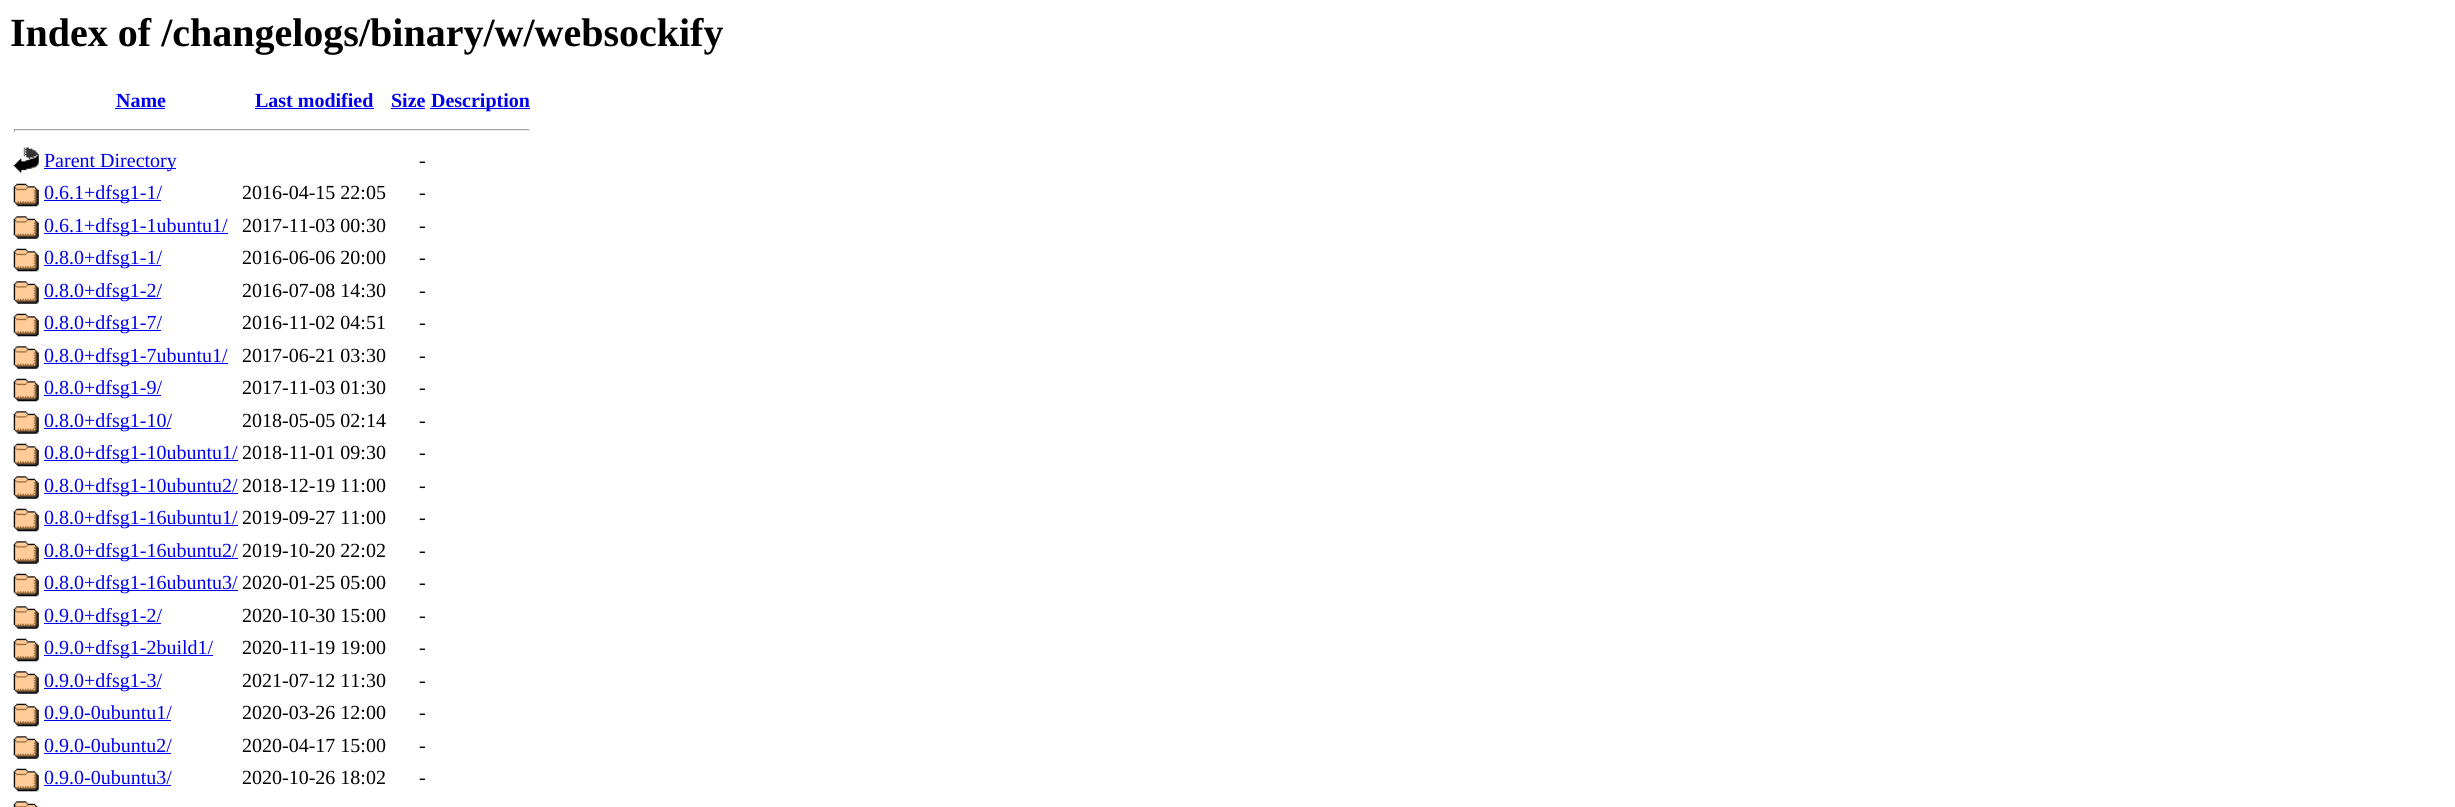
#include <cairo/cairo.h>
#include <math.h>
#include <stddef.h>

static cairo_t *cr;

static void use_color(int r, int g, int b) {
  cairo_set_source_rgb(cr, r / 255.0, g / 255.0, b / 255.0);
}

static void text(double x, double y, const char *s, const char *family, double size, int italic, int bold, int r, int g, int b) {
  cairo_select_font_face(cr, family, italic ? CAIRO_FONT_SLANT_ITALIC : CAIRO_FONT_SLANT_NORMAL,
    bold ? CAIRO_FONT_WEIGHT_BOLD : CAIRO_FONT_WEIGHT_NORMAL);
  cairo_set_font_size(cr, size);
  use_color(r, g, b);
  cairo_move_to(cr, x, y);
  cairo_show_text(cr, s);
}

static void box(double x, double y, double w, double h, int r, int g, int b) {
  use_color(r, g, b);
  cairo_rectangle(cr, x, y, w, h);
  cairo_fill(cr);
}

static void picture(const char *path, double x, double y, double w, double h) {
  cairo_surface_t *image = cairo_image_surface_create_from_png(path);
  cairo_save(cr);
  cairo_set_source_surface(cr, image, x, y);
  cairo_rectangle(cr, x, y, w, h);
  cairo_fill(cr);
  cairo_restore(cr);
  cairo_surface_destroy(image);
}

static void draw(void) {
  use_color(255, 255, 255);
  cairo_paint(cr);
  box(115, 108, 50, 1, 0, 0, 238);
  box(255, 108, 119, 1, 0, 0, 238);
  box(391, 108, 34, 1, 0, 0, 238);
  box(430, 108, 100, 1, 0, 0, 238);
  box(14, 129, 516, 1, 159, 159, 159);
  box(529, 129, 1, 3, 238, 238, 238);
  box(14, 130, 516, 1, 238, 238, 238);
  box(14, 129, 1, 3, 159, 159, 159);
  picture("img_01.png", 13, 147, 26, 26);
  box(44, 168, 132, 1, 0, 0, 238);
  picture("img_02.png", 13, 183, 26, 24);
  box(44, 200, 117, 1, 0, 0, 238);
  picture("img_03.png", 13, 216, 26, 23);
  box(44, 233, 184, 1, 0, 0, 238);
  picture("img_02.png", 13, 248, 26, 24);
  box(44, 265, 117, 1, 0, 0, 238);
  picture("img_04.png", 13, 281, 26, 23);
  box(44, 298, 117, 1, 0, 0, 238);
  picture("img_02.png", 13, 313, 26, 24);
  box(44, 330, 117, 1, 0, 0, 238);
  picture("img_03.png", 13, 346, 26, 23);
  box(44, 363, 184, 1, 0, 0, 238);
  picture("img_02.png", 13, 378, 26, 24);
  box(44, 395, 117, 1, 0, 0, 238);
  picture("img_03.png", 13, 411, 26, 23);
  box(44, 428, 127, 1, 0, 0, 238);
  picture("img_02.png", 13, 443, 26, 24);
  box(44, 460, 194, 1, 0, 0, 238);
  picture("img_03.png", 13, 476, 26, 23);
  box(44, 493, 194, 1, 0, 0, 238);
  picture("img_02.png", 13, 508, 26, 24);
  box(44, 525, 194, 1, 0, 0, 238);
  picture("img_03.png", 13, 541, 26, 23);
  box(44, 558, 194, 1, 0, 0, 238);
  picture("img_05.png", 13, 573, 26, 24);
  box(44, 590, 194, 1, 0, 0, 238);
  picture("img_03.png", 13, 606, 26, 23);
  box(44, 623, 117, 1, 0, 0, 238);
  picture("img_02.png", 13, 638, 26, 24);
  box(44, 655, 169, 1, 0, 0, 238);
  picture("img_03.png", 13, 671, 26, 23);
  box(44, 688, 117, 1, 0, 0, 238);
  picture("img_02.png", 13, 703, 26, 24);
  box(44, 720, 127, 1, 0, 0, 238);
  picture("img_03.png", 13, 736, 26, 23);
  box(44, 753, 127, 1, 0, 0, 238);
  picture("img_02.png", 13, 768, 26, 24);
  box(44, 785, 127, 1, 0, 0, 238);
  picture("img_06.png", 13, 801, 25, 6);
  text(10, 46, "Index of /changelogs/binary/w/websockify", "Liberation Serif", 40, 0, 1, 0, 0, 0);
  text(116, 107, "Name", "Liberation Serif", 20, 0, 1, 0, 0, 238);
  text(255, 107, "Last modified", "Liberation Serif", 20, 0, 1, 0, 0, 238);
  text(391, 107, "Size", "Liberation Serif", 20, 0, 1, 0, 0, 238);
  text(431, 107, "Description", "Liberation Serif", 20, 0, 1, 0, 0, 238);
  text(44, 167, "Parent Directory", "Liberation Serif", 20, 0, 0, 0, 0, 238);
  text(419, 167, "-", "Liberation Serif", 20, 0, 0, 0, 0, 0);
  text(44, 199, "0.6.1+dfsg1-1/", "Liberation Serif", 20, 0, 0, 0, 0, 238);
  text(242, 199, "2016-04-15 22:05", "Liberation Serif", 20, 0, 0, 0, 0, 0);
  text(419, 199, "-", "Liberation Serif", 20, 0, 0, 0, 0, 0);
  text(44, 232, "0.6.1+dfsg1-1ubuntu1/", "Liberation Serif", 20, 0, 0, 0, 0, 238);
  text(242, 232, "2017-11-03 00:30", "Liberation Serif", 20, 0, 0, 0, 0, 0);
  text(419, 232, "-", "Liberation Serif", 20, 0, 0, 0, 0, 0);
  text(44, 264, "0.8.0+dfsg1-1/", "Liberation Serif", 20, 0, 0, 0, 0, 238);
  text(242, 264, "2016-06-06 20:00", "Liberation Serif", 20, 0, 0, 0, 0, 0);
  text(419, 264, "-", "Liberation Serif", 20, 0, 0, 0, 0, 0);
  text(44, 297, "0.8.0+dfsg1-2/", "Liberation Serif", 20, 0, 0, 0, 0, 238);
  text(242, 297, "2016-07-08 14:30", "Liberation Serif", 20, 0, 0, 0, 0, 0);
  text(419, 297, "-", "Liberation Serif", 20, 0, 0, 0, 0, 0);
  text(44, 329, "0.8.0+dfsg1-7/", "Liberation Serif", 20, 0, 0, 0, 0, 238);
  text(242, 329, "2016-11-02 04:51", "Liberation Serif", 20, 0, 0, 0, 0, 0);
  text(419, 329, "-", "Liberation Serif", 20, 0, 0, 0, 0, 0);
  text(44, 362, "0.8.0+dfsg1-7ubuntu1/", "Liberation Serif", 20, 0, 0, 0, 0, 238);
  text(242, 362, "2017-06-21 03:30", "Liberation Serif", 20, 0, 0, 0, 0, 0);
  text(419, 362, "-", "Liberation Serif", 20, 0, 0, 0, 0, 0);
  text(44, 394, "0.8.0+dfsg1-9/", "Liberation Serif", 20, 0, 0, 0, 0, 238);
  text(242, 394, "2017-11-03 01:30", "Liberation Serif", 20, 0, 0, 0, 0, 0);
  text(419, 394, "-", "Liberation Serif", 20, 0, 0, 0, 0, 0);
  text(44, 427, "0.8.0+dfsg1-10/", "Liberation Serif", 20, 0, 0, 0, 0, 238);
  text(242, 427, "2018-05-05 02:14", "Liberation Serif", 20, 0, 0, 0, 0, 0);
  text(419, 427, "-", "Liberation Serif", 20, 0, 0, 0, 0, 0);
  text(44, 459, "0.8.0+dfsg1-10ubuntu1/", "Liberation Serif", 20, 0, 0, 0, 0, 238);
  text(242, 459, "2018-11-01 09:30", "Liberation Serif", 20, 0, 0, 0, 0, 0);
  text(419, 459, "-", "Liberation Serif", 20, 0, 0, 0, 0, 0);
  text(44, 492, "0.8.0+dfsg1-10ubuntu2/", "Liberation Serif", 20, 0, 0, 0, 0, 238);
  text(242, 492, "2018-12-19 11:00", "Liberation Serif", 20, 0, 0, 0, 0, 0);
  text(419, 492, "-", "Liberation Serif", 20, 0, 0, 0, 0, 0);
  text(44, 524, "0.8.0+dfsg1-16ubuntu1/", "Liberation Serif", 20, 0, 0, 0, 0, 238);
  text(242, 524, "2019-09-27 11:00", "Liberation Serif", 20, 0, 0, 0, 0, 0);
  text(419, 524, "-", "Liberation Serif", 20, 0, 0, 0, 0, 0);
  text(44, 557, "0.8.0+dfsg1-16ubuntu2/", "Liberation Serif", 20, 0, 0, 0, 0, 238);
  text(242, 557, "2019-10-20 22:02", "Liberation Serif", 20, 0, 0, 0, 0, 0);
  text(419, 557, "-", "Liberation Serif", 20, 0, 0, 0, 0, 0);
  text(44, 589, "0.8.0+dfsg1-16ubuntu3/", "Liberation Serif", 20, 0, 0, 0, 0, 238);
  text(242, 589, "2020-01-25 05:00", "Liberation Serif", 20, 0, 0, 0, 0, 0);
  text(419, 589, "-", "Liberation Serif", 20, 0, 0, 0, 0, 0);
  text(44, 622, "0.9.0+dfsg1-2/", "Liberation Serif", 20, 0, 0, 0, 0, 238);
  text(242, 622, "2020-10-30 15:00", "Liberation Serif", 20, 0, 0, 0, 0, 0);
  text(419, 622, "-", "Liberation Serif", 20, 0, 0, 0, 0, 0);
  text(44, 654, "0.9.0+dfsg1-2build1/", "Liberation Serif", 20, 0, 0, 0, 0, 238);
  text(242, 654, "2020-11-19 19:00", "Liberation Serif", 20, 0, 0, 0, 0, 0);
  text(419, 654, "-", "Liberation Serif", 20, 0, 0, 0, 0, 0);
  text(44, 687, "0.9.0+dfsg1-3/", "Liberation Serif", 20, 0, 0, 0, 0, 238);
  text(242, 687, "2021-07-12 11:30", "Liberation Serif", 20, 0, 0, 0, 0, 0);
  text(419, 687, "-", "Liberation Serif", 20, 0, 0, 0, 0, 0);
  text(44, 719, "0.9.0-0ubuntu1/", "Liberation Serif", 20, 0, 0, 0, 0, 238);
  text(242, 719, "2020-03-26 12:00", "Liberation Serif", 20, 0, 0, 0, 0, 0);
  text(419, 719, "-", "Liberation Serif", 20, 0, 0, 0, 0, 0);
  text(44, 752, "0.9.0-0ubuntu2/", "Liberation Serif", 20, 0, 0, 0, 0, 238);
  text(242, 752, "2020-04-17 15:00", "Liberation Serif", 20, 0, 0, 0, 0, 0);
  text(419, 752, "-", "Liberation Serif", 20, 0, 0, 0, 0, 0);
  text(44, 784, "0.9.0-0ubuntu3/", "Liberation Serif", 20, 0, 0, 0, 0, 238);
  text(242, 784, "2020-10-26 18:02", "Liberation Serif", 20, 0, 0, 0, 0, 0);
  text(419, 784, "-", "Liberation Serif", 20, 0, 0, 0, 0, 0);
}

int main(void) {
  cairo_surface_t *surface = cairo_image_surface_create(CAIRO_FORMAT_RGB24, 2455, 807);
  cr = cairo_create(surface);
  cairo_font_options_t *options = cairo_font_options_create();
  cairo_font_options_set_hint_metrics(options, CAIRO_HINT_METRICS_OFF);
  cairo_font_options_set_hint_style(options, CAIRO_HINT_STYLE_NONE);
  cairo_set_font_options(cr, options);
  cairo_set_miter_limit(cr, 4);
  draw();
  cairo_surface_write_to_png(surface, "out.png");
  cairo_font_options_destroy(options);
  cairo_destroy(cr);
  cairo_surface_destroy(surface);
  return 0;
}
